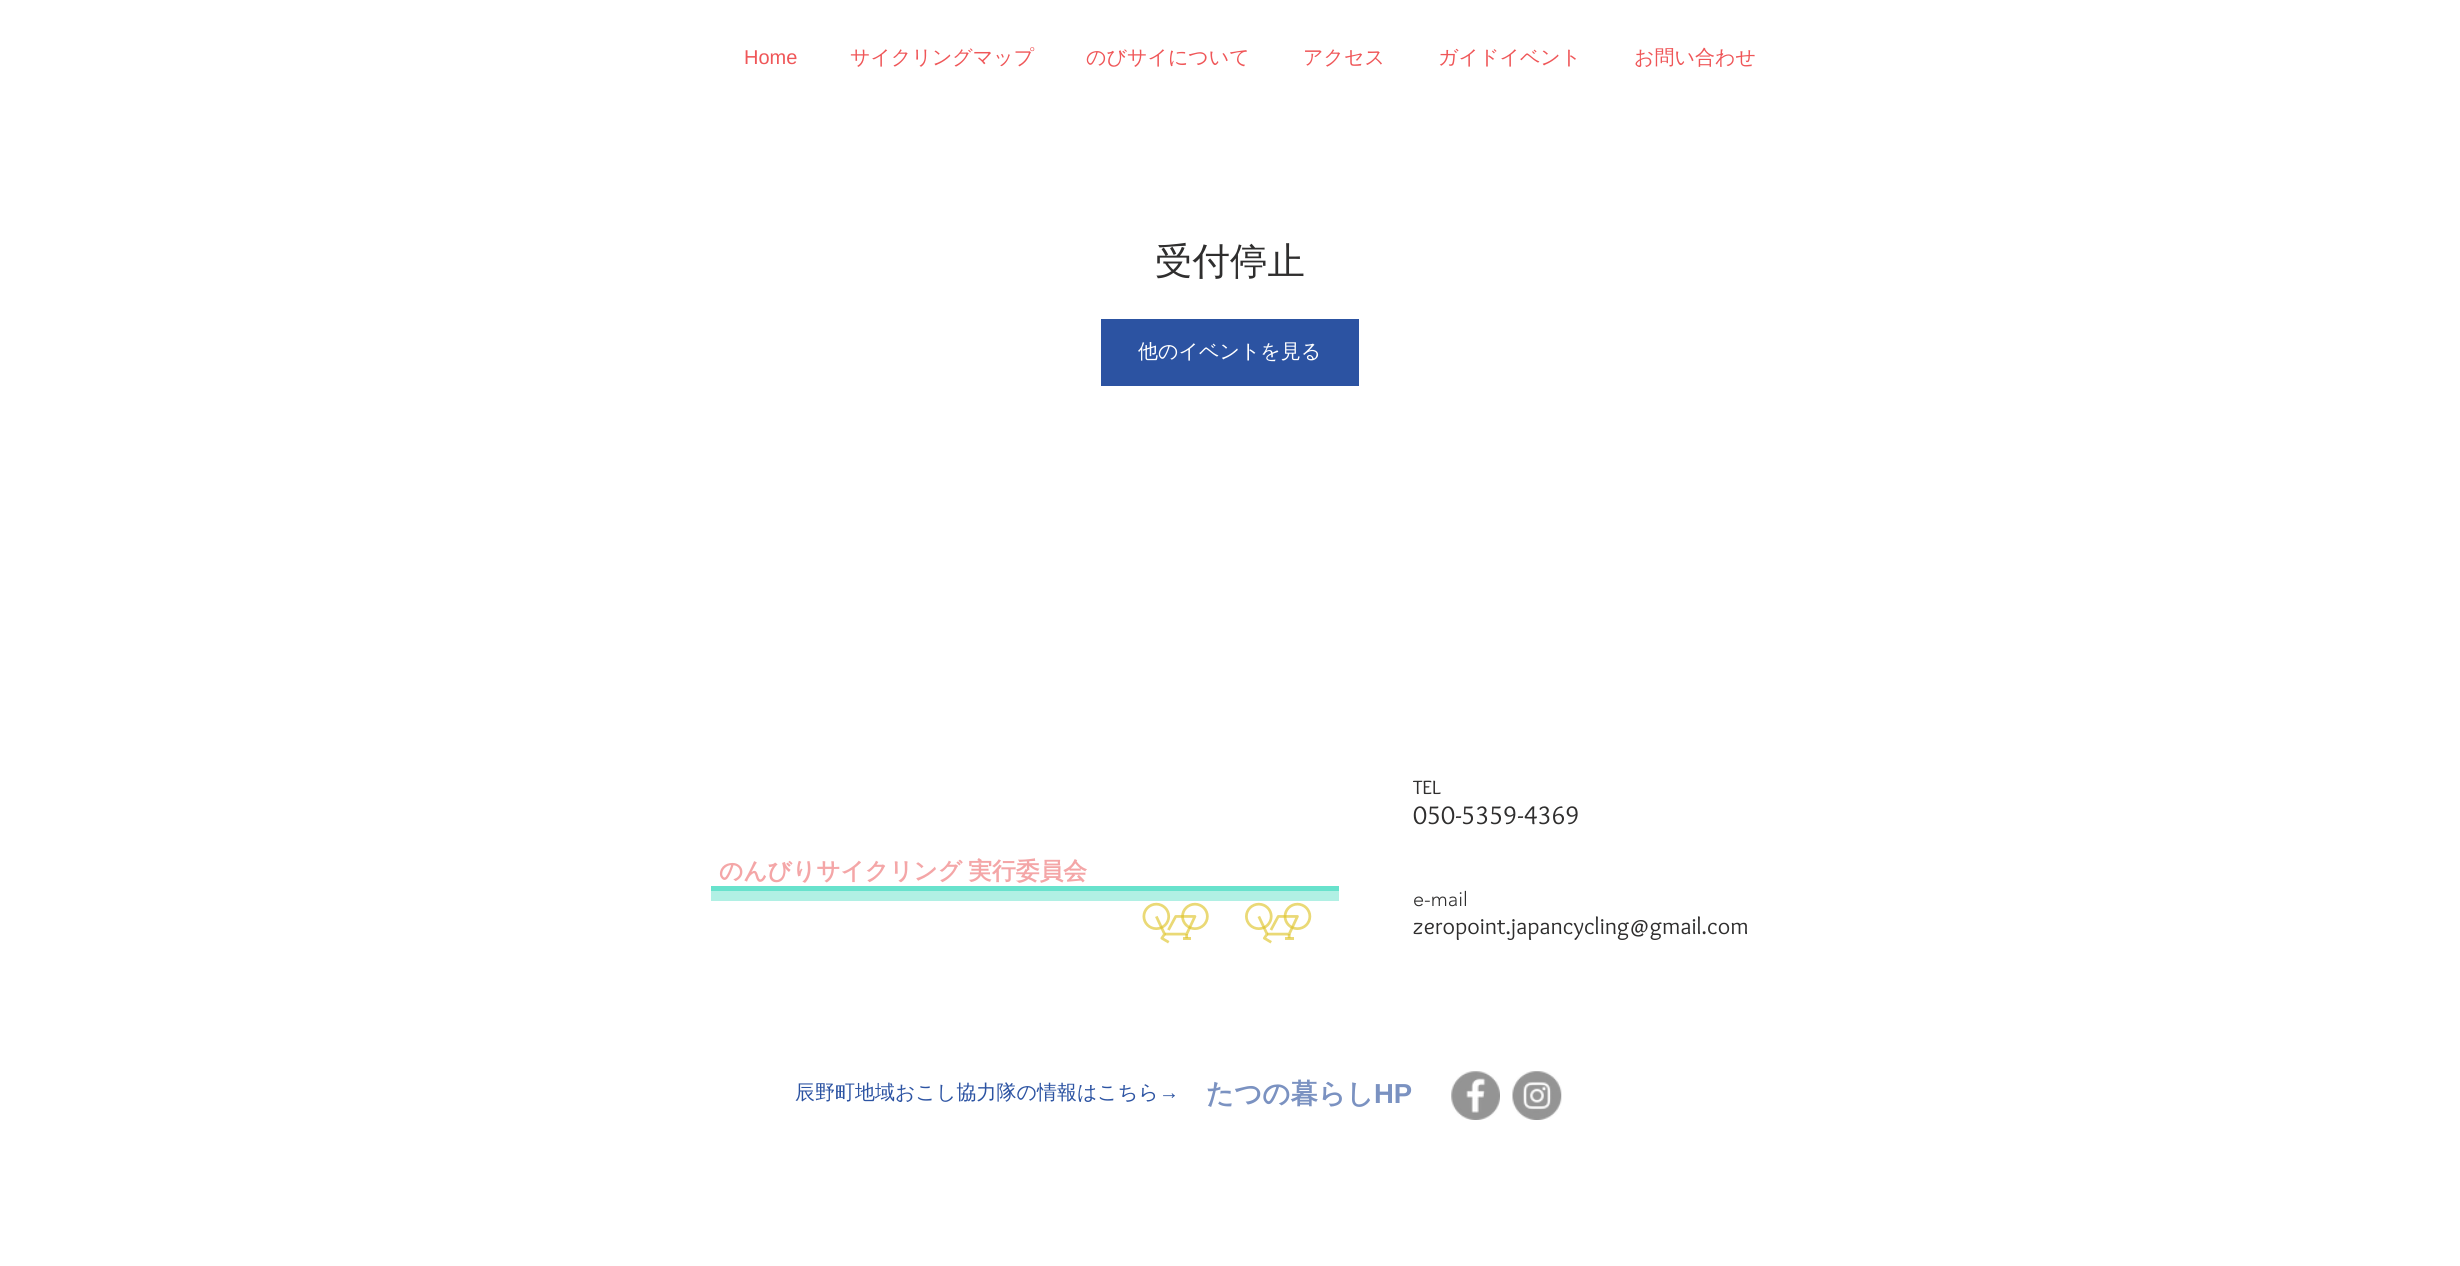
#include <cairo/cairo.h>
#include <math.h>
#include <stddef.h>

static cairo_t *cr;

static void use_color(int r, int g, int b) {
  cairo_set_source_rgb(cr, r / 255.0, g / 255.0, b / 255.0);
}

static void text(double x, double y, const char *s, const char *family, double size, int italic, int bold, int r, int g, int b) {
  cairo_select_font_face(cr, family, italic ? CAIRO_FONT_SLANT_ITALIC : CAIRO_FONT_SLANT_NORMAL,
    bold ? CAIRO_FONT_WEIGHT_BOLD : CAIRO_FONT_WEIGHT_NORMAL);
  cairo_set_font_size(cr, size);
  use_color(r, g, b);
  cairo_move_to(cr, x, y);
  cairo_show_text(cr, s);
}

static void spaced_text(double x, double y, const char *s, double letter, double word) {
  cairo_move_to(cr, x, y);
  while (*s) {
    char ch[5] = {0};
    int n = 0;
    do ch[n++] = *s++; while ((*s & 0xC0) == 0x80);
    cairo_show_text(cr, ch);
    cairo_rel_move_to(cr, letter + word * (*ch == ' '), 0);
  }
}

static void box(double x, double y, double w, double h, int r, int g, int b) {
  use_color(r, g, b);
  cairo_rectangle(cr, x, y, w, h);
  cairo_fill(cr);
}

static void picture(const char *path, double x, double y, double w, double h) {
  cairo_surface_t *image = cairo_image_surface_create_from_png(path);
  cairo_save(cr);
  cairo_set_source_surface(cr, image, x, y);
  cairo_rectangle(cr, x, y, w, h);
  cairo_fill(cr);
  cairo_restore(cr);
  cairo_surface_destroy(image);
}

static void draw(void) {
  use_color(255, 255, 255);
  cairo_paint(cr);
  box(1101, 319, 258, 67, 44, 83, 162);
  box(711, 886, 628, 5, 104, 226, 204);
  box(711, 891, 628, 10, 177, 240, 228);
  picture("img_01.png", 1142, 902, 67, 42);
  picture("img_02.png", 1245, 902, 67, 42);
  picture("img_03.png", 1451, 1071, 49, 49);
  picture("img_04.png", 1512, 1071, 50, 49);
  text(744, 64, "Home", "Liberation Sans", 20, 0, 0, 239, 86, 88);
  text(850, 64, "サイクリングマップ", "WenQuanYi Zen Hei Medium", 20, 0, 0, 239, 86, 88);
  text(1086, 64, "のびサイについて", "WenQuanYi Zen Hei Medium", 20, 0, 0, 239, 86, 88);
  text(1303, 64, "アクセス", "WenQuanYi Zen Hei Medium", 20, 0, 0, 239, 86, 88);
  text(1438, 64, "ガイドイベント", "WenQuanYi Zen Hei Medium", 20, 0, 0, 239, 86, 88);
  text(1634, 64, "お問い合わせ", "WenQuanYi Zen Hei Medium", 20, 0, 0, 239, 86, 88);
  text(1155, 274, "受付停止", "WenQuanYi Zen Hei Medium", 37.5, 0, 0, 47, 46, 46);
  text(1138, 358, "他のイベントを見る", "WenQuanYi Zen Hei Medium", 20, 0, 0, 255, 255, 255);
  text(1413, 794, "TEL", "Overlock", 20, 0, 0, 47, 46, 46);
  text(1413, 824, "050-5359-4369", "Overlock", 26.25, 0, 0, 47, 46, 46);
  cairo_select_font_face(cr, "WenQuanYi Zen Hei", CAIRO_FONT_SLANT_NORMAL, CAIRO_FONT_WEIGHT_BOLD);
  cairo_set_font_size(cr, 23.75);
  use_color(244, 166, 167);
  spaced_text(719, 879, "のんびりサイクリング 実行委員会", 0, -1);
  text(1413, 906, "e-mail", "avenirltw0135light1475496 Light", 20, 0, 0, 47, 46, 46);
  text(1413, 934, "zeropoint.japancycling@gmail.com", "Overlock", 23.75, 0, 0, 47, 46, 46);
  text(795, 1099, "辰野町地域おこし協力隊の情報はこちら", "WenQuanYi Zen Hei Medium", 20, 0, 0, 44, 83, 162);
  text(1159, 1099, "→", "Liberation Sans", 20, 0, 0, 44, 83, 162);
  text(1206, 1103, "たつの暮らし", "WenQuanYi Zen Hei", 27.5, 0, 1, 123, 146, 193);
  text(1374, 1103, "HP", "Liberation Sans", 27.5, 0, 1, 123, 146, 193);
}

int main(void) {
  cairo_surface_t *surface = cairo_image_surface_create(CAIRO_FORMAT_RGB24, 2460, 1266);
  cr = cairo_create(surface);
  cairo_font_options_t *options = cairo_font_options_create();
  cairo_font_options_set_hint_metrics(options, CAIRO_HINT_METRICS_OFF);
  cairo_font_options_set_hint_style(options, CAIRO_HINT_STYLE_NONE);
  cairo_set_font_options(cr, options);
  cairo_set_miter_limit(cr, 4);
  draw();
  cairo_surface_write_to_png(surface, "out.png");
  cairo_font_options_destroy(options);
  cairo_destroy(cr);
  cairo_surface_destroy(surface);
  return 0;
}
